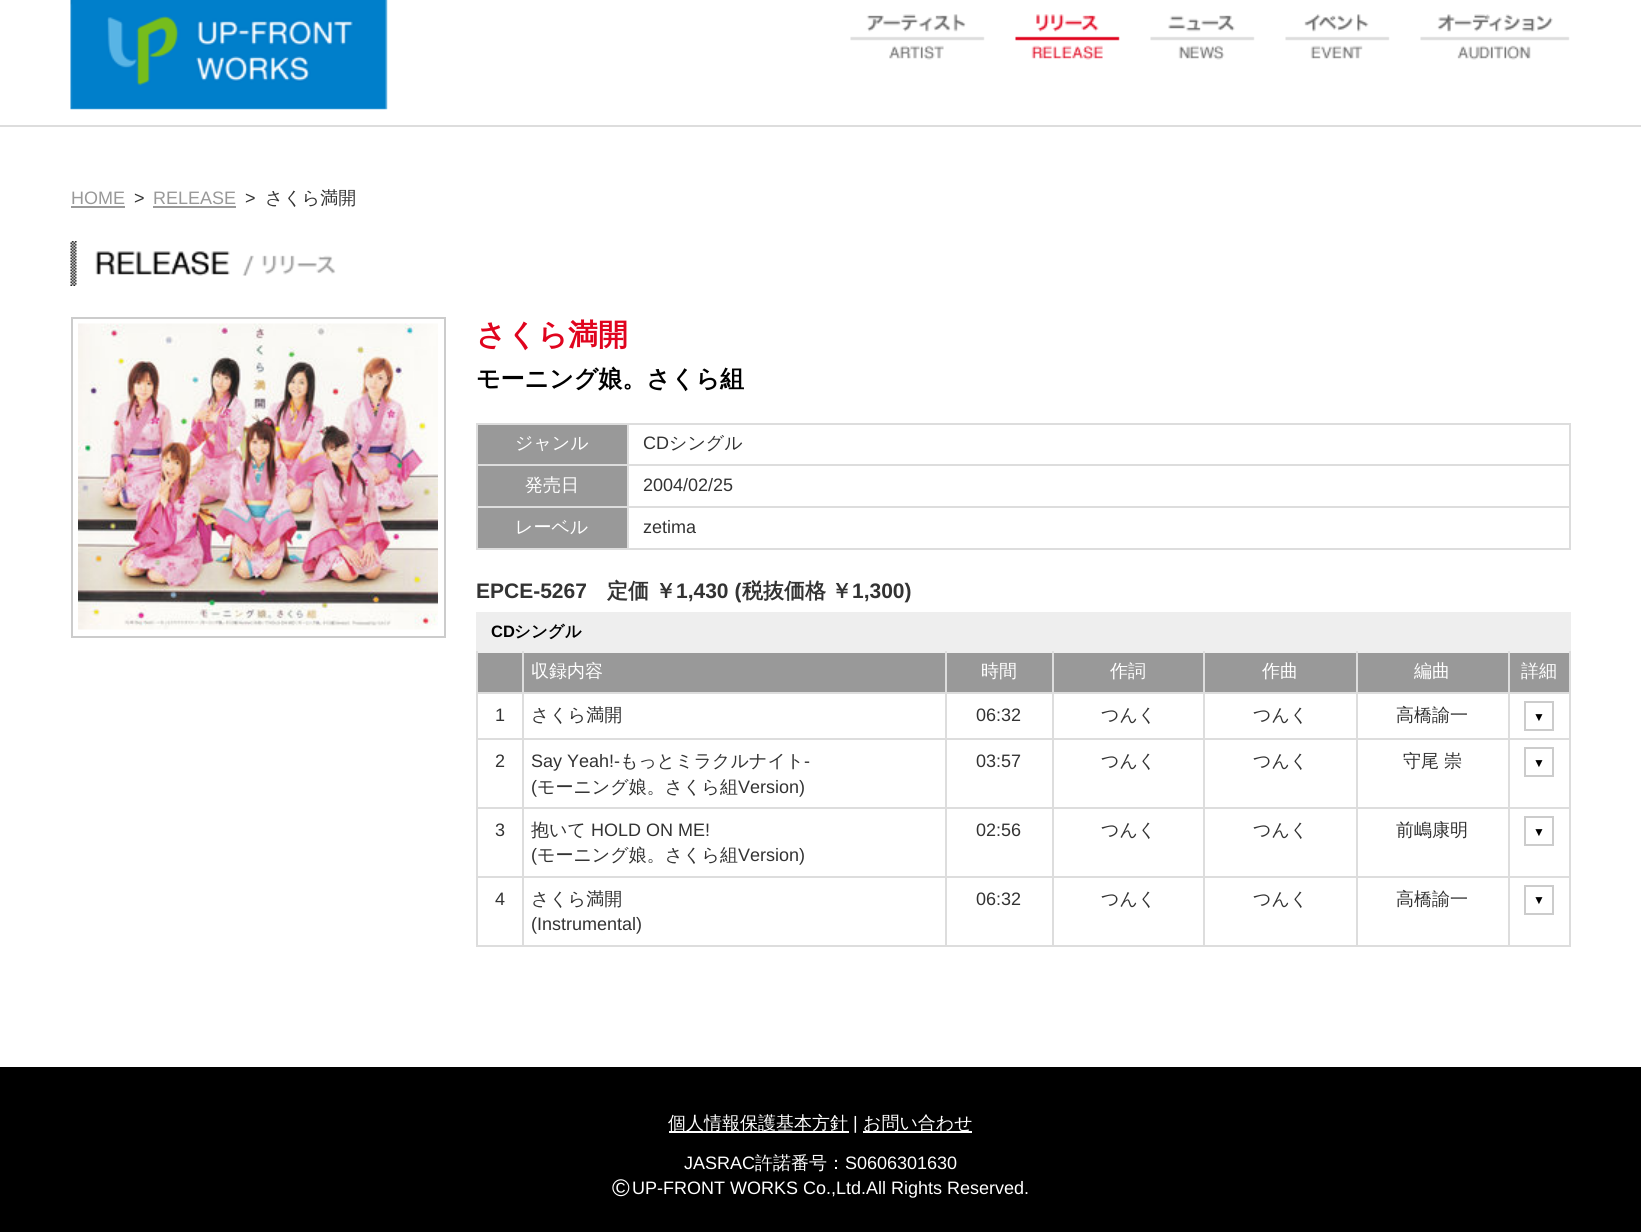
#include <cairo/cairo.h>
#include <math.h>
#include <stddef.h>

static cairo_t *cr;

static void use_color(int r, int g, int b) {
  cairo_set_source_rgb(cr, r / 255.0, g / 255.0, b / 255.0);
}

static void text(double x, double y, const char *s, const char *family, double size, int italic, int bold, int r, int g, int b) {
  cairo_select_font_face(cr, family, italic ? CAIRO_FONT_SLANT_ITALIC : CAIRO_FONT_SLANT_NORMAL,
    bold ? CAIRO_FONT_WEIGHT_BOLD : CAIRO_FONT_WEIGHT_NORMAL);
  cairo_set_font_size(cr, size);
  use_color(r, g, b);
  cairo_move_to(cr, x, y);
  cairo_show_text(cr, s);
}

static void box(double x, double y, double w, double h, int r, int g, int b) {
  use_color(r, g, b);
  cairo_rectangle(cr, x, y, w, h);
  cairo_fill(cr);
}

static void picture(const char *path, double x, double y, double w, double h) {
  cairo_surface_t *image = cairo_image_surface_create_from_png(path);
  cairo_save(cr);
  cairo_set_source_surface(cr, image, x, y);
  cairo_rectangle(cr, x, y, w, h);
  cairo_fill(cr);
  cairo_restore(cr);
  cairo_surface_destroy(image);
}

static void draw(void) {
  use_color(255, 255, 255);
  cairo_paint(cr);
  picture("img_01.png", 70, 0, 318, 110);
  picture("img_02.png", 850, 14, 135, 46);
  picture("img_03.png", 1015, 14, 105, 46);
  picture("img_04.png", 1150, 15, 105, 45);
  picture("img_05.png", 1285, 14, 105, 45);
  picture("img_06.png", 1420, 14, 150, 46);
  box(0, 125, 1641, 2, 221, 221, 221);
  box(71, 206, 54, 2, 153, 153, 153);
  box(153, 206, 83, 2, 153, 153, 153);
  picture("img_07.png", 70, 241, 266, 45);
  cairo_rectangle(cr, 72, 318, 373, 319);
  use_color(204, 204, 204);
  cairo_stroke(cr);
  picture("img_08.png", 78, 323, 360, 307);
  box(478, 425, 149, 39, 153, 153, 153);
  box(627, 423, 944, 2, 221, 221, 221);
  box(627, 464, 944, 2, 221, 221, 221);
  box(627, 506, 944, 2, 221, 221, 221);
  box(1569, 506, 2, 43, 221, 221, 221);
  box(627, 548, 944, 2, 221, 221, 221);
  box(627, 506, 2, 43, 221, 221, 221);
  box(476, 506, 153, 2, 221, 221, 221);
  box(627, 464, 2, 43, 221, 221, 221);
  box(476, 464, 153, 2, 221, 221, 221);
  box(627, 423, 2, 42, 221, 221, 221);
  box(476, 423, 153, 2, 221, 221, 221);
  box(476, 548, 153, 2, 221, 221, 221);
  box(476, 506, 2, 43, 221, 221, 221);
  box(476, 464, 2, 43, 221, 221, 221);
  box(476, 423, 2, 42, 221, 221, 221);
  box(1569, 464, 2, 43, 221, 221, 221);
  box(1569, 423, 2, 42, 221, 221, 221);
  box(478, 466, 149, 40, 153, 153, 153);
  box(478, 508, 149, 40, 153, 153, 153);
  box(476, 612, 1095, 41, 238, 238, 238);
  box(478, 653, 1091, 39, 153, 153, 153);
  box(1569, 651, 2, 296, 221, 221, 221);
  box(1508, 738, 63, 2, 221, 221, 221);
  box(1508, 692, 2, 48, 221, 221, 221);
  box(1508, 692, 63, 2, 221, 221, 221);
  box(1508, 651, 2, 42, 221, 221, 221);
  box(1356, 738, 153, 2, 221, 221, 221);
  box(1356, 692, 2, 48, 221, 221, 221);
  box(1356, 692, 153, 2, 221, 221, 221);
  box(1356, 651, 2, 42, 221, 221, 221);
  box(1203, 738, 155, 2, 221, 221, 221);
  box(1203, 692, 2, 48, 221, 221, 221);
  box(1203, 692, 155, 2, 221, 221, 221);
  box(1203, 651, 2, 42, 221, 221, 221);
  box(1052, 738, 153, 2, 221, 221, 221);
  box(1052, 692, 2, 48, 221, 221, 221);
  box(1052, 692, 153, 2, 221, 221, 221);
  box(1052, 651, 2, 42, 221, 221, 221);
  box(945, 738, 108, 2, 221, 221, 221);
  box(945, 692, 2, 48, 221, 221, 221);
  box(945, 692, 108, 2, 221, 221, 221);
  box(945, 651, 2, 42, 221, 221, 221);
  box(522, 738, 425, 2, 221, 221, 221);
  box(522, 692, 2, 48, 221, 221, 221);
  box(522, 692, 425, 2, 221, 221, 221);
  box(522, 651, 2, 42, 221, 221, 221);
  box(476, 738, 48, 2, 221, 221, 221);
  box(476, 692, 2, 48, 221, 221, 221);
  box(476, 692, 48, 2, 221, 221, 221);
  box(476, 651, 2, 42, 221, 221, 221);
  cairo_rectangle(cr, 1525, 702, 28, 28);
  use_color(204, 204, 204);
  cairo_stroke(cr);
  box(1508, 807, 63, 2, 221, 221, 221);
  box(1508, 740, 2, 69, 221, 221, 221);
  box(1356, 807, 153, 2, 221, 221, 221);
  box(1356, 740, 2, 69, 221, 221, 221);
  box(1203, 807, 155, 2, 221, 221, 221);
  box(1203, 740, 2, 69, 221, 221, 221);
  box(1052, 807, 153, 2, 221, 221, 221);
  box(1052, 740, 2, 69, 221, 221, 221);
  box(945, 807, 108, 2, 221, 221, 221);
  box(945, 740, 2, 69, 221, 221, 221);
  box(522, 807, 425, 2, 221, 221, 221);
  box(522, 740, 2, 69, 221, 221, 221);
  box(476, 807, 48, 2, 221, 221, 221);
  box(476, 740, 2, 69, 221, 221, 221);
  cairo_rectangle(cr, 1525, 748, 28, 28);
  use_color(204, 204, 204);
  cairo_stroke(cr);
  box(1508, 945, 63, 2, 221, 221, 221);
  box(1508, 876, 2, 71, 221, 221, 221);
  box(1508, 876, 63, 2, 221, 221, 221);
  box(1508, 809, 2, 69, 221, 221, 221);
  box(1356, 945, 153, 2, 221, 221, 221);
  box(1356, 876, 2, 71, 221, 221, 221);
  box(1356, 876, 153, 2, 221, 221, 221);
  box(1356, 809, 2, 69, 221, 221, 221);
  box(1203, 945, 155, 2, 221, 221, 221);
  box(1203, 876, 2, 71, 221, 221, 221);
  box(1203, 876, 155, 2, 221, 221, 221);
  box(1203, 809, 2, 69, 221, 221, 221);
  box(1052, 945, 153, 2, 221, 221, 221);
  box(1052, 876, 2, 71, 221, 221, 221);
  box(1052, 876, 153, 2, 221, 221, 221);
  box(1052, 809, 2, 69, 221, 221, 221);
  box(945, 945, 108, 2, 221, 221, 221);
  box(945, 876, 2, 71, 221, 221, 221);
  box(945, 876, 108, 2, 221, 221, 221);
  box(945, 809, 2, 69, 221, 221, 221);
  box(522, 945, 425, 2, 221, 221, 221);
  box(522, 876, 2, 71, 221, 221, 221);
  box(522, 876, 425, 2, 221, 221, 221);
  box(522, 809, 2, 69, 221, 221, 221);
  box(476, 945, 48, 2, 221, 221, 221);
  box(476, 876, 2, 71, 221, 221, 221);
  box(476, 876, 48, 2, 221, 221, 221);
  box(476, 809, 2, 69, 221, 221, 221);
  cairo_rectangle(cr, 1525, 817, 28, 28);
  use_color(204, 204, 204);
  cairo_stroke(cr);
  cairo_rectangle(cr, 1525, 886, 28, 28);
  cairo_stroke(cr);
  box(0, 1067, 1641, 165, 0, 0, 0);
  box(669, 1131, 180, 2, 255, 255, 255);
  box(863, 1131, 109, 2, 255, 255, 255);
  text(71, 204, "HOME", "Liberation Sans", 18, 0, 0, 153, 153, 153);
  text(134, 204, ">", "Liberation Sans", 18, 0, 0, 51, 51, 51);
  text(153, 204, "RELEASE", "Liberation Sans", 18, 0, 0, 153, 153, 153);
  text(245, 204, ">", "Liberation Sans", 18, 0, 0, 51, 51, 51);
  text(265, 204, "さくら満開", "WenQuanYi Zen Hei Medium", 18, 0, 0, 51, 51, 51);
  text(476, 345, "さくら満開", "WenQuanYi Zen Hei", 30, 0, 1, 224, 4, 30);
  text(476, 387, "モーニング娘。さくら組", "WenQuanYi Zen Hei", 24, 0, 1, 0, 0, 0);
  text(515, 449, "ジャンル", "WenQuanYi Zen Hei Medium", 18, 0, 0, 255, 255, 255);
  text(643, 449, "CD", "Liberation Sans", 18, 0, 0, 51, 51, 51);
  text(669, 449, "シングル", "WenQuanYi Zen Hei Medium", 18, 0, 0, 51, 51, 51);
  text(525, 491, "発売日", "WenQuanYi Zen Hei Medium", 18, 0, 0, 255, 255, 255);
  text(643, 491, "2004/02/25", "Liberation Sans", 18, 0, 0, 51, 51, 51);
  text(515, 533, "レーベル", "WenQuanYi Zen Hei Medium", 18, 0, 0, 255, 255, 255);
  text(643, 533, "zetima", "Liberation Sans", 18, 0, 0, 51, 51, 51);
  text(476, 598, "EPCE-5267", "Liberation Sans", 21, 0, 1, 51, 51, 51);
  text(607, 598, "定価", "WenQuanYi Zen Hei", 21, 0, 1, 51, 51, 51);
  text(655, 598, "￥", "WenQuanYi Zen Hei", 21, 0, 1, 51, 51, 51);
  text(676, 598, "1,430 (", "Liberation Sans", 21, 0, 1, 51, 51, 51);
  text(742, 598, "税抜価格", "WenQuanYi Zen Hei", 21, 0, 1, 51, 51, 51);
  text(831, 598, "￥", "WenQuanYi Zen Hei", 21, 0, 1, 51, 51, 51);
  text(852, 598, "1,300)", "Liberation Sans", 21, 0, 1, 51, 51, 51);
  text(491, 637, "CD", "Liberation Sans", 16.5, 0, 1, 0, 0, 0);
  text(514, 637, "シングル", "WenQuanYi Zen Hei", 16.5, 0, 1, 0, 0, 0);
  text(531, 677, "収録内容", "WenQuanYi Zen Hei Medium", 18, 0, 0, 255, 255, 255);
  text(981, 677, "時間", "WenQuanYi Zen Hei Medium", 18, 0, 0, 255, 255, 255);
  text(1110, 677, "作詞", "WenQuanYi Zen Hei Medium", 18, 0, 0, 255, 255, 255);
  text(1262, 677, "作曲", "WenQuanYi Zen Hei Medium", 18, 0, 0, 255, 255, 255);
  text(1414, 677, "編曲", "WenQuanYi Zen Hei Medium", 18, 0, 0, 255, 255, 255);
  text(1521, 677, "詳細", "WenQuanYi Zen Hei Medium", 18, 0, 0, 255, 255, 255);
  text(495, 721, "1", "Liberation Sans", 18, 0, 0, 51, 51, 51);
  text(531, 721, "さくら満開", "WenQuanYi Zen Hei Medium", 18, 0, 0, 51, 51, 51);
  text(976, 721, "06:32", "Liberation Sans", 18, 0, 0, 51, 51, 51);
  text(1101, 721, "つんく", "WenQuanYi Zen Hei Medium", 18, 0, 0, 51, 51, 51);
  text(1253, 721, "つんく", "WenQuanYi Zen Hei Medium", 18, 0, 0, 51, 51, 51);
  text(1396, 721, "高橋諭一", "WenQuanYi Zen Hei Medium", 18, 0, 0, 51, 51, 51);
  text(1533, 721, "▼", "Liberation Sans", 12, 0, 0, 0, 0, 0);
  text(495, 767, "2", "Liberation Sans", 18, 0, 0, 51, 51, 51);
  text(531, 767, "Say Yeah!-", "Liberation Sans", 18, 0, 0, 51, 51, 51);
  text(620, 767, "もっとミラクルナイト", "WenQuanYi Zen Hei Medium", 18, 0, 0, 51, 51, 51);
  text(804, 767, "-", "Liberation Sans", 18, 0, 0, 51, 51, 51);
  text(531, 793, "(", "Liberation Sans", 18, 0, 0, 51, 51, 51);
  text(537, 793, "モーニング娘。さくら組", "WenQuanYi Zen Hei Medium", 18, 0, 0, 51, 51, 51);
  text(738, 793, "Version)", "Liberation Sans", 18, 0, 0, 51, 51, 51);
  text(976, 767, "03:57", "Liberation Sans", 18, 0, 0, 51, 51, 51);
  text(1101, 767, "つんく", "WenQuanYi Zen Hei Medium", 18, 0, 0, 51, 51, 51);
  text(1253, 767, "つんく", "WenQuanYi Zen Hei Medium", 18, 0, 0, 51, 51, 51);
  text(1403, 767, "守尾", "WenQuanYi Zen Hei Medium", 18, 0, 0, 51, 51, 51);
  text(1444, 767, "崇", "WenQuanYi Zen Hei Medium", 18, 0, 0, 51, 51, 51);
  text(1533, 767, "▼", "Liberation Sans", 12, 0, 0, 0, 0, 0);
  text(495, 836, "3", "Liberation Sans", 18, 0, 0, 51, 51, 51);
  text(531, 836, "抱いて", "WenQuanYi Zen Hei Medium", 18, 0, 0, 51, 51, 51);
  text(591, 836, "HOLD ON ME!", "Liberation Sans", 18, 0, 0, 51, 51, 51);
  text(531, 861, "(", "Liberation Sans", 18, 0, 0, 51, 51, 51);
  text(537, 861, "モーニング娘。さくら組", "WenQuanYi Zen Hei Medium", 18, 0, 0, 51, 51, 51);
  text(738, 861, "Version)", "Liberation Sans", 18, 0, 0, 51, 51, 51);
  text(976, 836, "02:56", "Liberation Sans", 18, 0, 0, 51, 51, 51);
  text(1101, 836, "つんく", "WenQuanYi Zen Hei Medium", 18, 0, 0, 51, 51, 51);
  text(1253, 836, "つんく", "WenQuanYi Zen Hei Medium", 18, 0, 0, 51, 51, 51);
  text(1396, 836, "前嶋康明", "WenQuanYi Zen Hei Medium", 18, 0, 0, 51, 51, 51);
  text(1533, 836, "▼", "Liberation Sans", 12, 0, 0, 0, 0, 0);
  text(495, 905, "4", "Liberation Sans", 18, 0, 0, 51, 51, 51);
  text(531, 905, "さくら満開", "WenQuanYi Zen Hei Medium", 18, 0, 0, 51, 51, 51);
  text(531, 930, "(Instrumental)", "Liberation Sans", 18, 0, 0, 51, 51, 51);
  text(976, 905, "06:32", "Liberation Sans", 18, 0, 0, 51, 51, 51);
  text(1101, 905, "つんく", "WenQuanYi Zen Hei Medium", 18, 0, 0, 51, 51, 51);
  text(1253, 905, "つんく", "WenQuanYi Zen Hei Medium", 18, 0, 0, 51, 51, 51);
  text(1396, 905, "高橋諭一", "WenQuanYi Zen Hei Medium", 18, 0, 0, 51, 51, 51);
  text(1533, 904, "▼", "Liberation Sans", 12, 0, 0, 0, 0, 0);
  text(668, 1129, "個人情報保護基本方針", "WenQuanYi Zen Hei Medium", 18, 0, 0, 255, 255, 255);
  text(853, 1129, "|", "Liberation Sans", 18, 0, 0, 255, 255, 255);
  text(863, 1129, "お問い合わせ", "WenQuanYi Zen Hei Medium", 18, 0, 0, 255, 255, 255);
  text(684, 1169, "JASRAC", "Liberation Sans", 18, 0, 0, 255, 255, 255);
  text(755, 1169, "許諾番号：", "WenQuanYi Zen Hei Medium", 18, 0, 0, 255, 255, 255);
  text(845, 1169, "S0606301630", "Liberation Sans", 18, 0, 0, 255, 255, 255);
  text(612, 1196, "©", "Liberation Sans", 24, 0, 0, 255, 255, 255);
  text(632, 1194, "UP-FRONT WORKS Co.,Ltd.All Rights Reserved.", "Liberation Sans", 18, 0, 0, 255, 255, 255);
}

int main(void) {
  cairo_surface_t *surface = cairo_image_surface_create(CAIRO_FORMAT_RGB24, 1641, 1232);
  cr = cairo_create(surface);
  cairo_font_options_t *options = cairo_font_options_create();
  cairo_font_options_set_hint_metrics(options, CAIRO_HINT_METRICS_OFF);
  cairo_font_options_set_hint_style(options, CAIRO_HINT_STYLE_NONE);
  cairo_set_font_options(cr, options);
  cairo_set_miter_limit(cr, 4);
  draw();
  cairo_surface_write_to_png(surface, "out.png");
  cairo_font_options_destroy(options);
  cairo_destroy(cr);
  cairo_surface_destroy(surface);
  return 0;
}
